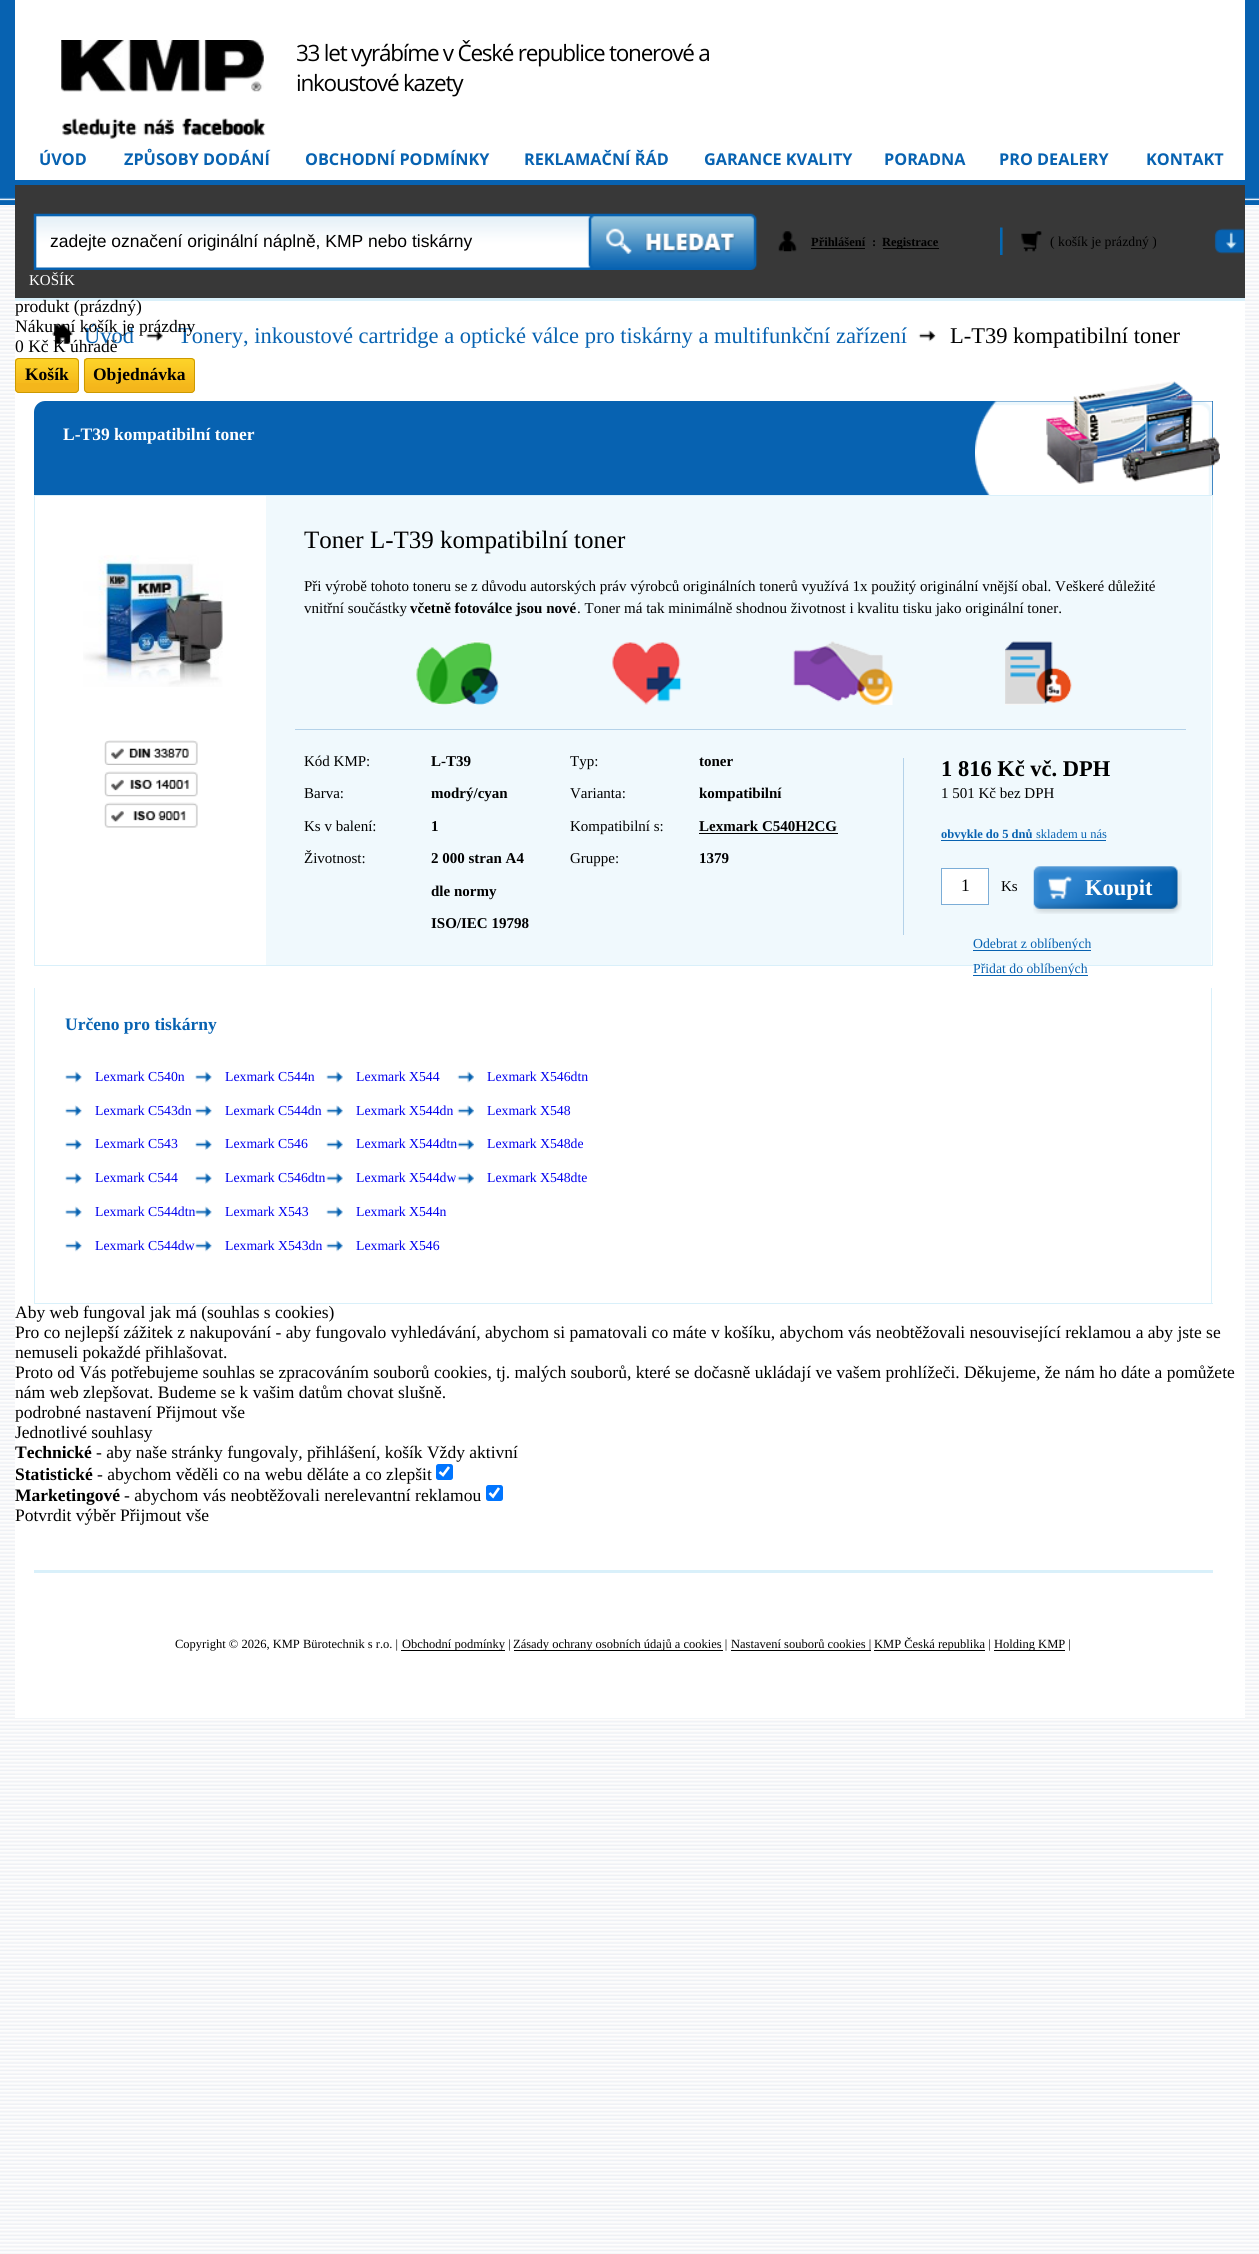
#include <cairo/cairo.h>
#include <math.h>
#include <stddef.h>

static cairo_t *cr;

static void use_color(int r, int g, int b) {
  cairo_set_source_rgb(cr, r / 255.0, g / 255.0, b / 255.0);
}

static void text(double x, double y, const char *s, const char *family, double size, int italic, int bold, int r, int g, int b) {
  cairo_select_font_face(cr, family, italic ? CAIRO_FONT_SLANT_ITALIC : CAIRO_FONT_SLANT_NORMAL,
    bold ? CAIRO_FONT_WEIGHT_BOLD : CAIRO_FONT_WEIGHT_NORMAL);
  cairo_set_font_size(cr, size);
  use_color(r, g, b);
  cairo_move_to(cr, x, y);
  cairo_show_text(cr, s);
}

static void spaced_text(double x, double y, const char *s, double letter, double word) {
  cairo_move_to(cr, x, y);
  while (*s) {
    char ch[5] = {0};
    int n = 0;
    do ch[n++] = *s++; while ((*s & 0xC0) == 0x80);
    cairo_show_text(cr, ch);
    cairo_rel_move_to(cr, letter + word * (*ch == ' '), 0);
  }
}

static void box(double x, double y, double w, double h, int r, int g, int b) {
  use_color(r, g, b);
  cairo_rectangle(cr, x, y, w, h);
  cairo_fill(cr);
}

static void round_rect(double x, double y, double w, double h, double r) {
  cairo_new_sub_path(cr);
  cairo_arc(cr, x + w - r, y + h - r, r, 0, M_PI / 2);
  cairo_arc(cr, x + r, y + h - r, r, M_PI / 2, M_PI);
  cairo_arc(cr, x + r, y + r, r, M_PI, 1.5 * M_PI);
  cairo_arc(cr, x + w - r, y + r, r, 1.5 * M_PI, 2 * M_PI);
  cairo_close_path(cr);
}

static void picture(const char *path, double x, double y, double w, double h) {
  cairo_surface_t *image = cairo_image_surface_create_from_png(path);
  cairo_save(cr);
  cairo_set_source_surface(cr, image, x, y);
  cairo_rectangle(cr, x, y, w, h);
  cairo_fill(cr);
  cairo_restore(cr);
  cairo_surface_destroy(image);
}

static void draw(void) {
  use_color(255, 255, 255);
  cairo_paint(cr);
  picture("img_01.png", 0, 205, 1259, 2049);
  picture("img_02.png", 0, 0, 1259, 205);
  box(15, 0, 1230, 1718, 255, 255, 255);
  picture("img_03.png", 61, 40, 203, 52);
  picture("img_04.png", 62, 118, 204, 21);
  box(15, 298, 1230, 3, 217, 240, 250);
  box(15, 180, 1230, 5, 7, 98, 177);
  box(15, 185, 1230, 113, 56, 56, 56);
  picture("img_05.png", 33, 213, 725, 57);
  picture("img_06.png", 778, 231, 19, 21);
  box(811, 248, 54, 1, 0, 0, 0);
  box(883, 248, 56, 1, 0, 0, 0);
  picture("img_07.png", 1000, 227, 244, 28);
  use_color(244, 182, 27);
  round_rect(15, 358, 64, 35, 4);
  cairo_fill(cr);
  picture("img_08.png", 15, 358, 64, 25);
  round_rect(15.5, 358.5, 63, 34, 3.5);
  use_color(204, 153, 0);
  cairo_set_line_width(cr, 1);
  cairo_stroke(cr);
  use_color(244, 182, 27);
  round_rect(84, 358, 111, 35, 4);
  cairo_fill(cr);
  picture("img_09.png", 83, 358, 112, 31);
  round_rect(84.5, 358.5, 110, 34, 3.5);
  use_color(204, 153, 0);
  cairo_stroke(cr);
  picture("img_10.png", 52, 323, 21, 21);
  picture("img_11.png", 146, 330, 17, 12);
  picture("img_12.png", 918, 330, 18, 12);
  use_color(7, 98, 177);
  cairo_new_path(cr);
  cairo_move_to(cr, 45, 401);
  cairo_line_to(cr, 1213, 401);
  cairo_line_to(cr, 1213, 495);
  cairo_line_to(cr, 34, 495);
  cairo_line_to(cr, 34, 412);
  cairo_curve_to(cr, 34, 406, 39, 401, 45, 401);
  cairo_close_path(cr);
  cairo_fill(cr);
  picture("img_13.png", 975, 401, 238, 94);
  picture("img_14.png", 1046, 381, 174, 103);
  cairo_rectangle(cr, 34.5, 495.5, 1178, 470);
  use_color(217, 240, 250);
  cairo_stroke(cr);
  picture("img_15.png", 83, 555, 140, 132);
  picture("img_16.png", 104, 740, 94, 25);
  picture("img_17.png", 104, 771, 94, 26);
  picture("img_18.png", 104, 802, 94, 26);
  box(266, 496, 945, 469, 240, 249, 253);
  picture("img_19.png", 416, 641, 84, 64);
  picture("img_20.png", 612, 642, 70, 63);
  picture("img_21.png", 793, 641, 100, 64);
  picture("img_22.png", 1005, 641, 67, 64);
  box(295, 729, 891, 1, 180, 210, 233);
  box(699, 833, 139, 1, 0, 0, 0);
  box(903, 758, 1, 177, 180, 210, 233);
  box(941, 840, 165, 1, 7, 98, 177);
  use_color(255, 255, 255);
  cairo_rectangle(cr, 941.5, 868.5, 47, 36);
  cairo_fill_preserve(cr);
  use_color(123, 173, 215);
  cairo_stroke(cr);
  picture("img_23.png", 1033, 866, 149, 48);
  box(973, 950, 118, 1, 7, 98, 177);
  box(973, 975, 115, 1, 7, 98, 177);
  box(1211, 988, 1, 316, 217, 240, 250);
  box(34, 1303, 1179, 1, 217, 240, 250);
  box(34, 988, 1, 316, 217, 240, 250);
  picture("img_24.png", 65, 1071, 17, 12);
  picture("img_25.png", 65, 1105, 17, 12);
  picture("img_26.png", 65, 1139, 17, 11);
  picture("img_27.png", 65, 1172, 17, 12);
  picture("img_24.png", 65, 1206, 17, 12);
  picture("img_25.png", 65, 1240, 17, 12);
  picture("img_24.png", 195, 1071, 17, 12);
  picture("img_25.png", 195, 1105, 17, 12);
  picture("img_26.png", 195, 1139, 17, 11);
  picture("img_27.png", 195, 1172, 17, 12);
  picture("img_25.png", 195, 1240, 17, 12);
  picture("img_29.png", 326, 1071, 17, 12);
  picture("img_30.png", 326, 1105, 17, 12);
  picture("img_31.png", 326, 1139, 17, 11);
  picture("img_32.png", 326, 1172, 17, 12);
  picture("img_29.png", 326, 1206, 17, 12);
  picture("img_30.png", 326, 1240, 17, 12);
  picture("img_33.png", 457, 1071, 17, 12);
  picture("img_34.png", 457, 1105, 17, 12);
  picture("img_35.png", 457, 1139, 17, 11);
  picture("img_36.png", 457, 1172, 17, 12);
  use_color(0, 117, 255);
  round_rect(436, 1464, 17, 16, 2.5);
  cairo_fill(cr);
  cairo_new_path(cr);
  cairo_move_to(cr, 439.5, 1472);
  cairo_line_to(cr, 443, 1475);
  cairo_line_to(cr, 449, 1467);
  use_color(255, 255, 255);
  cairo_set_line_width(cr, 2.6);
  cairo_stroke(cr);
  use_color(0, 117, 255);
  round_rect(486, 1485, 17, 16, 2.5);
  cairo_fill(cr);
  cairo_new_path(cr);
  cairo_move_to(cr, 489.5, 1493);
  cairo_line_to(cr, 493, 1496.5);
  cairo_line_to(cr, 499, 1488);
  use_color(255, 255, 255);
  cairo_stroke(cr);
  box(34, 1570, 1179, 3, 217, 240, 250);
  box(401, 1650, 104, 1, 0, 0, 0);
  box(514, 1650, 209, 1, 0, 0, 0);
  box(731, 1650, 140, 1, 0, 0, 0);
  box(874, 1650, 111, 1, 0, 0, 0);
  box(994, 1650, 71, 1, 0, 0, 0);
  cairo_select_font_face(cr, "Open Sans", CAIRO_FONT_SLANT_NORMAL, CAIRO_FONT_WEIGHT_NORMAL);
  cairo_set_font_size(cr, 22.5);
  spaced_text(296, 61, "33 let vyrábíme v České republice tonerové a", -1.25, 0);
  spaced_text(296, 91, "inkoustové kazety", -1.25, 0);
  text(39, 165, "ÚVOD", "Open Sans", 16.25, 0, 1, 7, 98, 177);
  text(124, 165, "ZPŮSOBY DODÁNÍ", "Open Sans", 16.25, 0, 1, 7, 98, 177);
  text(305, 165, "OBCHODNÍ PODMÍNKY", "Open Sans", 16.25, 0, 1, 7, 98, 177);
  text(524, 165, "REKLAMAČNÍ ŘÁD", "Open Sans", 16.25, 0, 1, 7, 98, 177);
  text(704, 165, "GARANCE KVALITY", "Open Sans", 16.25, 0, 1, 7, 98, 177);
  text(884, 165, "PORADNA", "Open Sans", 16.25, 0, 1, 7, 98, 177);
  text(999, 165, "PRO DEALERY", "Open Sans", 16.25, 0, 1, 7, 98, 177);
  text(1146, 165, "KONTAKT", "Open Sans", 16.25, 0, 1, 7, 98, 177);
  text(50, 247, "zadejte označení originální náplně, KMP nebo tiskárny", "Liberation Sans", 17.5, 0, 0, 0, 0, 0);
  text(811, 246, "Přihlášení", "Liberation Serif", 12.5, 0, 1, 0, 0, 0);
  text(872, 246, ":", "Liberation Serif", 12.5, 0, 1, 0, 0, 0);
  text(882, 246, "Registrace", "Liberation Serif", 12.5, 0, 1, 0, 0, 0);
  text(1050, 246, "( košík je prázdný )", "Liberation Serif", 13.75, 0, 0, 0, 0, 0);
  text(29, 285, "KOŠÍK", "Liberation Serif", 15, 0, 0, 255, 255, 255);
  text(15, 312, "produkt (prázdný)", "Liberation Serif", 17.5, 0, 0, 0, 0, 0);
  text(15, 352, "0 Kč K úhradě", "Liberation Serif", 17.5, 0, 0, 0, 0, 0);
  text(25, 380, "Košík", "Liberation Serif", 17.5, 0, 1, 0, 0, 0);
  text(93, 380, "Objednávka", "Liberation Serif", 17.5, 0, 1, 0, 0, 0);
  text(84, 343, "Úvod", "Liberation Serif", 22.5, 0, 0, 7, 98, 177);
  text(178, 343, "Tonery, inkoustové cartridge a optické válce pro tiskárny a multifunkční zařízení", "Liberation Serif", 22.5, 0, 0, 7, 98, 177);
  text(15, 332, "Nákupní košík je prázdny", "Liberation Serif", 17.5, 0, 0, 0, 0, 0);
  text(950, 343, "L-T39 kompatibilní toner", "Liberation Serif", 22.5, 0, 0, 0, 0, 0);
  text(63, 440, "L-T39 kompatibilní toner", "Liberation Serif", 17.5, 0, 1, 255, 255, 255);
  text(304, 548, "Toner L-T39 kompatibilní toner", "Liberation Serif", 25, 0, 0, 0, 0, 0);
  text(304, 591, "Při výrobě tohoto toneru se z důvodu autorských práv výrobců originálních tonerů využívá 1x použitý originální vnější obal. Veškeré důležité", "Liberation Serif", 15, 0, 0, 0, 0, 0);
  text(304, 613, "vnitřní součástky", "Liberation Serif", 15, 0, 0, 0, 0, 0);
  text(410, 613, "včetně fotoválce jsou nové", "Liberation Serif", 15, 0, 1, 0, 0, 0);
  text(577, 613, ". Toner má tak minimálně shodnou životnost i kvalitu tisku jako originální toner.", "Liberation Serif", 15, 0, 0, 0, 0, 0);
  text(304, 766, "Kód KMP:", "Liberation Serif", 15, 0, 0, 0, 0, 0);
  text(431, 766, "L-T39", "Liberation Serif", 15, 0, 1, 0, 0, 0);
  text(304, 798, "Barva:", "Liberation Serif", 15, 0, 0, 0, 0, 0);
  text(431, 798, "modrý/cyan", "Liberation Serif", 15, 0, 1, 0, 0, 0);
  text(304, 831, "Ks v balení:", "Liberation Serif", 15, 0, 0, 0, 0, 0);
  text(431, 831, "1", "Liberation Serif", 15, 0, 1, 0, 0, 0);
  text(304, 863, "Životnost:", "Liberation Serif", 15, 0, 0, 0, 0, 0);
  text(431, 863, "2 000 stran A4", "Liberation Serif", 15, 0, 1, 0, 0, 0);
  text(431, 896, "dle normy", "Liberation Serif", 15, 0, 1, 0, 0, 0);
  text(431, 928, "ISO/IEC 19798", "Liberation Serif", 15, 0, 1, 0, 0, 0);
  text(570, 766, "Typ:", "Liberation Serif", 15, 0, 0, 0, 0, 0);
  text(699, 766, "toner", "Liberation Serif", 15, 0, 1, 0, 0, 0);
  text(570, 798, "Varianta:", "Liberation Serif", 15, 0, 0, 0, 0, 0);
  text(699, 798, "kompatibilní", "Liberation Serif", 15, 0, 1, 0, 0, 0);
  text(570, 831, "Kompatibilní s:", "Liberation Serif", 15, 0, 0, 0, 0, 0);
  text(699, 831, "Lexmark C540H2CG", "Liberation Serif", 15, 0, 1, 0, 0, 0);
  text(570, 863, "Gruppe:", "Liberation Serif", 15, 0, 0, 0, 0, 0);
  text(699, 863, "1379", "Liberation Serif", 15, 0, 1, 0, 0, 0);
  text(941, 776, "1 816 Kč vč. DPH", "Liberation Serif", 22.5, 0, 1, 0, 0, 0);
  text(941, 798, "1 501 Kč bez DPH", "Liberation Serif", 15, 0, 0, 0, 0, 0);
  text(941, 838, "obvykle do 5 dnů", "Liberation Serif", 12.5, 0, 1, 7, 98, 177);
  text(1036, 838, "skladem u nás", "Liberation Serif", 12.5, 0, 0, 7, 98, 177);
  text(961, 891, "1", "Liberation Serif", 17.5, 0, 0, 0, 0, 0);
  text(1001, 891, "Ks", "Liberation Serif", 15, 0, 0, 0, 0, 0);
  text(1085, 895, "Koupit", "Liberation Serif", 22.5, 0, 1, 255, 255, 255);
  text(973, 948, "Odebrat z oblíbených", "Liberation Serif", 13.75, 0, 0, 7, 98, 177);
  text(973, 973, "Přidat do oblíbených", "Liberation Serif", 13.75, 0, 0, 7, 98, 177);
  text(65, 1030, "Určeno pro tiskárny", "Liberation Serif", 17.5, 0, 1, 7, 98, 177);
  text(95, 1081, "Lexmark C540n", "Liberation Serif", 13.75, 0, 0, 0, 0, 238);
  text(95, 1115, "Lexmark C543dn", "Liberation Serif", 13.75, 0, 0, 0, 0, 238);
  text(95, 1148, "Lexmark C543", "Liberation Serif", 13.75, 0, 0, 0, 0, 238);
  text(95, 1182, "Lexmark C544", "Liberation Serif", 13.75, 0, 0, 0, 0, 238);
  text(95, 1216, "Lexmark C544dtn", "Liberation Serif", 13.75, 0, 0, 0, 0, 238);
  text(95, 1250, "Lexmark C544dw", "Liberation Serif", 13.75, 0, 0, 0, 0, 238);
  text(225, 1081, "Lexmark C544n", "Liberation Serif", 13.75, 0, 0, 0, 0, 238);
  text(225, 1115, "Lexmark C544dn", "Liberation Serif", 13.75, 0, 0, 0, 0, 238);
  text(225, 1148, "Lexmark C546", "Liberation Serif", 13.75, 0, 0, 0, 0, 238);
  text(225, 1182, "Lexmark C546dtn", "Liberation Serif", 13.75, 0, 0, 0, 0, 238);
  picture("img_28.png", 195, 1206, 17, 12);
  text(225, 1216, "Lexmark X543", "Liberation Serif", 13.75, 0, 0, 0, 0, 238);
  text(225, 1250, "Lexmark X543dn", "Liberation Serif", 13.75, 0, 0, 0, 0, 238);
  text(356, 1081, "Lexmark X544", "Liberation Serif", 13.75, 0, 0, 0, 0, 238);
  text(356, 1115, "Lexmark X544dn", "Liberation Serif", 13.75, 0, 0, 0, 0, 238);
  text(356, 1148, "Lexmark X544dtn", "Liberation Serif", 13.75, 0, 0, 0, 0, 238);
  text(356, 1182, "Lexmark X544dw", "Liberation Serif", 13.75, 0, 0, 0, 0, 238);
  text(356, 1216, "Lexmark X544n", "Liberation Serif", 13.75, 0, 0, 0, 0, 238);
  text(356, 1250, "Lexmark X546", "Liberation Serif", 13.75, 0, 0, 0, 0, 238);
  text(487, 1081, "Lexmark X546dtn", "Liberation Serif", 13.75, 0, 0, 0, 0, 238);
  text(487, 1115, "Lexmark X548", "Liberation Serif", 13.75, 0, 0, 0, 0, 238);
  text(487, 1148, "Lexmark X548de", "Liberation Serif", 13.75, 0, 0, 0, 0, 238);
  text(487, 1182, "Lexmark X548dte", "Liberation Serif", 13.75, 0, 0, 0, 0, 238);
  text(15, 1318, "Aby web fungoval jak má (souhlas s cookies)", "Liberation Serif", 17.5, 0, 0, 0, 0, 0);
  text(15, 1338, "Pro co nejlepší zážitek z nakupování - aby fungovalo vyhledávání, abychom si pamatovali co máte v košíku, abychom vás neobtěžovali nesouvisející reklamou a aby jste se", "Liberation Serif", 17.5, 0, 0, 0, 0, 0);
  text(15, 1358, "nemuseli pokaždé přihlašovat.", "Liberation Serif", 17.5, 0, 0, 0, 0, 0);
  text(15, 1378, "Proto od Vás potřebujeme souhlas se zpracováním souborů cookies, tj. malých souborů, které se dočasně ukládají ve vašem prohlížeči. Děkujeme, že nám ho dáte a pomůžete", "Liberation Serif", 17.5, 0, 0, 0, 0, 0);
  text(15, 1398, "nám web zlepšovat. Budeme se k vašim datům chovat slušně.", "Liberation Serif", 17.5, 0, 0, 0, 0, 0);
  text(15, 1418, "podrobné nastavení Přijmout vše", "Liberation Serif", 17.5, 0, 0, 0, 0, 0);
  text(15, 1438, "Jednotlivé souhlasy", "Liberation Serif", 17.5, 0, 0, 0, 0, 0);
  text(15, 1458, "Technické", "Liberation Serif", 17.5, 0, 1, 0, 0, 0);
  text(96, 1458, "- aby naše stránky fungovaly, přihlášení, košík Vždy aktivní", "Liberation Serif", 17.5, 0, 0, 0, 0, 0);
  text(15, 1480, "Statistické", "Liberation Serif", 17.5, 0, 1, 0, 0, 0);
  text(97, 1480, "- abychom věděli co na webu děláte a co zlepšit", "Liberation Serif", 17.5, 0, 0, 0, 0, 0);
  text(15, 1501, "Marketingové", "Liberation Serif", 17.5, 0, 1, 0, 0, 0);
  text(124, 1501, "- abychom vás neobtěžovali nerelevantní reklamou", "Liberation Serif", 17.5, 0, 0, 0, 0, 0);
  text(15, 1521, "Potvrdit výběr Přijmout vše", "Liberation Serif", 17.5, 0, 0, 0, 0, 0);
  text(175, 1648, "Copyright © 2026, KMP Bürotechnik s r.o. |", "Liberation Serif", 12.5, 0, 0, 0, 0, 0);
  text(402, 1648, "Obchodní podmínky |", "Liberation Serif", 12.5, 0, 0, 0, 0, 0);
  text(513, 1648, "Zásady ochrany osobních údajů a cookies |", "Liberation Serif", 12.5, 0, 0, 0, 0, 0);
  text(731, 1648, "Nastavení souborů cookies |", "Liberation Serif", 12.5, 0, 0, 0, 0, 0);
  text(874, 1648, "KMP Česká republika |", "Liberation Serif", 12.5, 0, 0, 0, 0, 0);
  text(994, 1648, "Holding KMP |", "Liberation Serif", 12.5, 0, 0, 0, 0, 0);
}

int main(void) {
  cairo_surface_t *surface = cairo_image_surface_create(CAIRO_FORMAT_RGB24, 1259, 2254);
  cr = cairo_create(surface);
  cairo_font_options_t *options = cairo_font_options_create();
  cairo_font_options_set_hint_metrics(options, CAIRO_HINT_METRICS_OFF);
  cairo_font_options_set_hint_style(options, CAIRO_HINT_STYLE_NONE);
  cairo_set_font_options(cr, options);
  cairo_set_miter_limit(cr, 4);
  draw();
  cairo_surface_write_to_png(surface, "out.png");
  cairo_font_options_destroy(options);
  cairo_destroy(cr);
  cairo_surface_destroy(surface);
  return 0;
}
